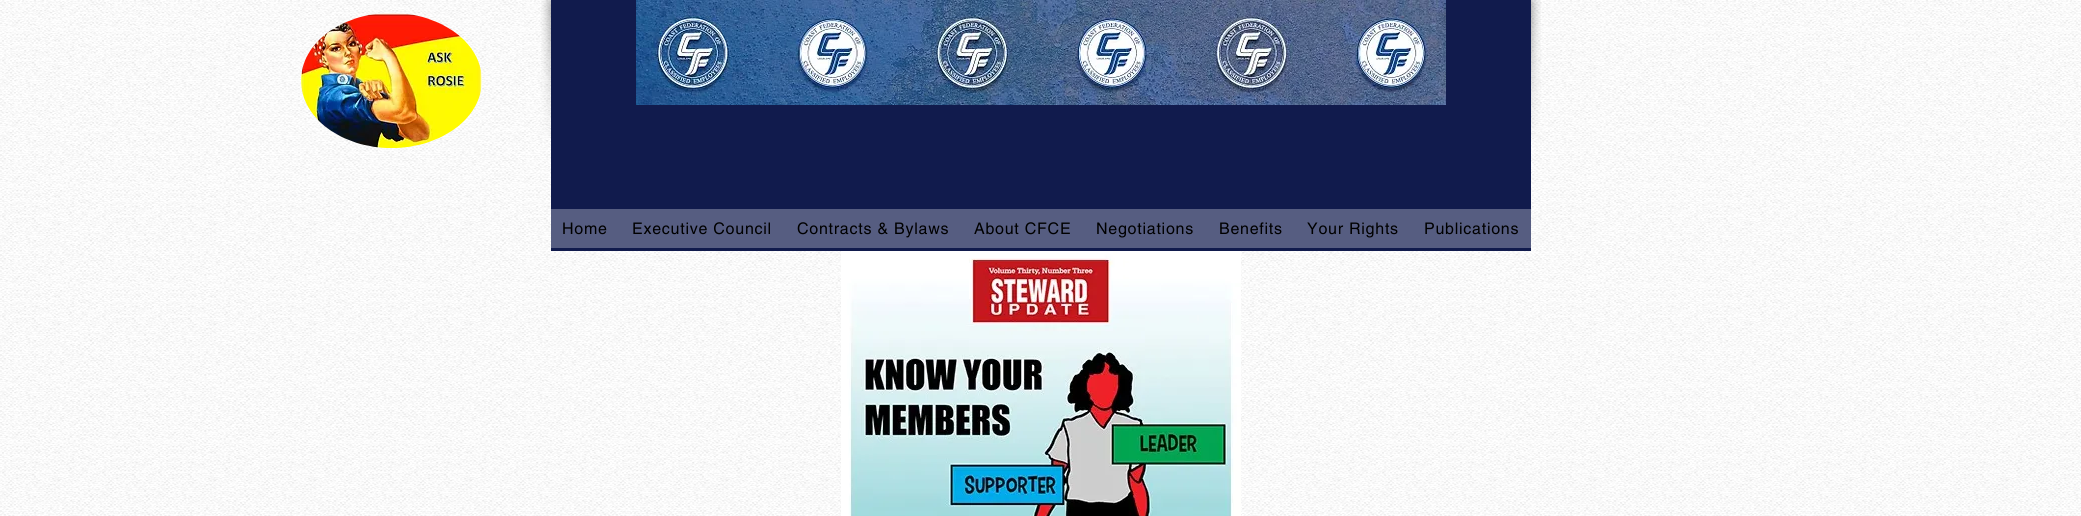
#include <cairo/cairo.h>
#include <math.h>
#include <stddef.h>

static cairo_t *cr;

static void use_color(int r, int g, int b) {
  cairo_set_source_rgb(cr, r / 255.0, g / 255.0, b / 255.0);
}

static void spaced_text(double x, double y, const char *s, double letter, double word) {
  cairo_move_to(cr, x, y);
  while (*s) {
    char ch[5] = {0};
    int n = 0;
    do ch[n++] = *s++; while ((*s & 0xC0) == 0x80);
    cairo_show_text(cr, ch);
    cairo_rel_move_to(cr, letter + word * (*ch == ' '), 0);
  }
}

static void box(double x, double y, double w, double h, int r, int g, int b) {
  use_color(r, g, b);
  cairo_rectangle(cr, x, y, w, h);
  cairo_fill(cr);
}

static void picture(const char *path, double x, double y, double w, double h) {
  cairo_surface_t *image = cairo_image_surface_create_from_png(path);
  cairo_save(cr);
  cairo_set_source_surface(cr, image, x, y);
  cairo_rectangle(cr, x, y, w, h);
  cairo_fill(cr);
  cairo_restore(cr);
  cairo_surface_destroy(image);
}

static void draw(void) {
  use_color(255, 255, 255);
  cairo_paint(cr);
  picture("img_01.png", 0, 0, 2081, 516);
  picture("img_02.png", 541, 0, 10, 138);
  box(551, 0, 980, 251, 17, 27, 77);
  picture("img_03.png", 1531, 0, 10, 138);
  picture("img_04.png", 301, 13, 181, 135);
  picture("img_05.png", 636, 0, 810, 105);
  box(551, 209, 980, 39, 86, 93, 129);
  picture("img_06.png", 841, 251, 400, 265);
  cairo_select_font_face(cr, "helvetica", CAIRO_FONT_SLANT_NORMAL, CAIRO_FONT_WEIGHT_NORMAL);
  cairo_set_font_size(cr, 16);
  use_color(0, 0, 0);
  spaced_text(562, 234, "Home", 0.75, 0);
  spaced_text(632, 234, "Executive Council", 0.75, 0);
  spaced_text(797, 234, "Contracts & Bylaws", 0.75, 0);
  spaced_text(974, 234, "About CFCE", 0.75, 0);
  spaced_text(1096, 234, "Negotiations", 0.75, 0);
  spaced_text(1219, 234, "Benefits", 0.75, 0);
  spaced_text(1307, 234, "Your Rights", 0.75, 0);
  spaced_text(1424, 234, "Publications", 0.75, 0);
}

int main(void) {
  cairo_surface_t *surface = cairo_image_surface_create(CAIRO_FORMAT_RGB24, 2081, 516);
  cr = cairo_create(surface);
  cairo_font_options_t *options = cairo_font_options_create();
  cairo_font_options_set_hint_metrics(options, CAIRO_HINT_METRICS_OFF);
  cairo_font_options_set_hint_style(options, CAIRO_HINT_STYLE_NONE);
  cairo_set_font_options(cr, options);
  cairo_set_miter_limit(cr, 4);
  draw();
  cairo_surface_write_to_png(surface, "out.png");
  cairo_font_options_destroy(options);
  cairo_destroy(cr);
  cairo_surface_destroy(surface);
  return 0;
}
